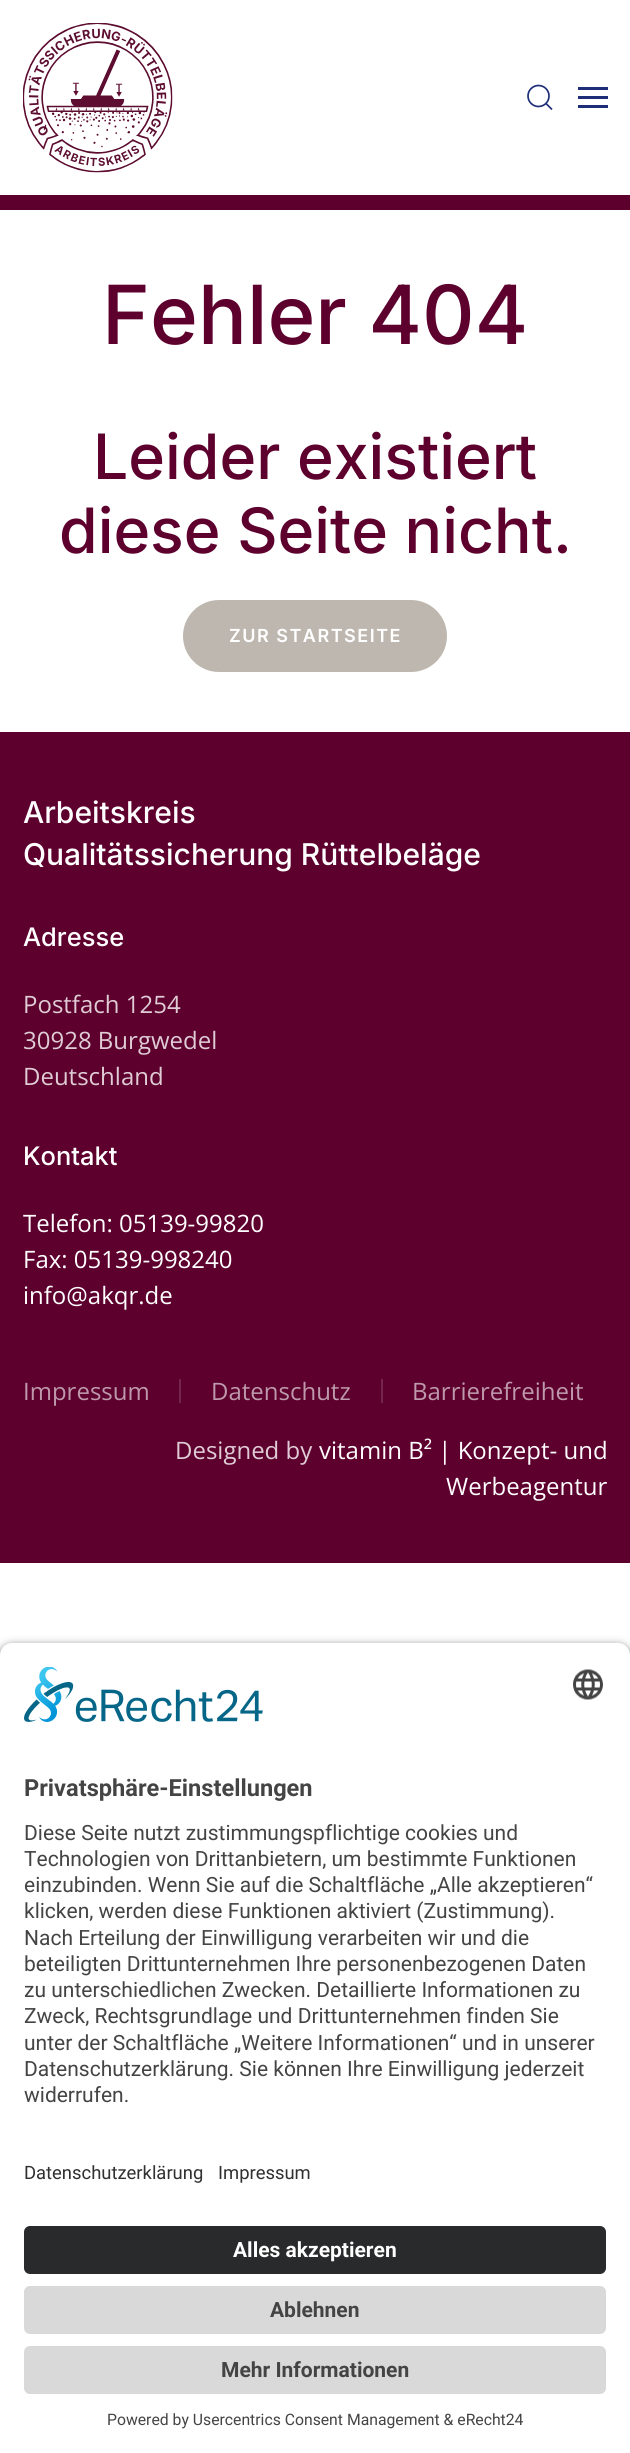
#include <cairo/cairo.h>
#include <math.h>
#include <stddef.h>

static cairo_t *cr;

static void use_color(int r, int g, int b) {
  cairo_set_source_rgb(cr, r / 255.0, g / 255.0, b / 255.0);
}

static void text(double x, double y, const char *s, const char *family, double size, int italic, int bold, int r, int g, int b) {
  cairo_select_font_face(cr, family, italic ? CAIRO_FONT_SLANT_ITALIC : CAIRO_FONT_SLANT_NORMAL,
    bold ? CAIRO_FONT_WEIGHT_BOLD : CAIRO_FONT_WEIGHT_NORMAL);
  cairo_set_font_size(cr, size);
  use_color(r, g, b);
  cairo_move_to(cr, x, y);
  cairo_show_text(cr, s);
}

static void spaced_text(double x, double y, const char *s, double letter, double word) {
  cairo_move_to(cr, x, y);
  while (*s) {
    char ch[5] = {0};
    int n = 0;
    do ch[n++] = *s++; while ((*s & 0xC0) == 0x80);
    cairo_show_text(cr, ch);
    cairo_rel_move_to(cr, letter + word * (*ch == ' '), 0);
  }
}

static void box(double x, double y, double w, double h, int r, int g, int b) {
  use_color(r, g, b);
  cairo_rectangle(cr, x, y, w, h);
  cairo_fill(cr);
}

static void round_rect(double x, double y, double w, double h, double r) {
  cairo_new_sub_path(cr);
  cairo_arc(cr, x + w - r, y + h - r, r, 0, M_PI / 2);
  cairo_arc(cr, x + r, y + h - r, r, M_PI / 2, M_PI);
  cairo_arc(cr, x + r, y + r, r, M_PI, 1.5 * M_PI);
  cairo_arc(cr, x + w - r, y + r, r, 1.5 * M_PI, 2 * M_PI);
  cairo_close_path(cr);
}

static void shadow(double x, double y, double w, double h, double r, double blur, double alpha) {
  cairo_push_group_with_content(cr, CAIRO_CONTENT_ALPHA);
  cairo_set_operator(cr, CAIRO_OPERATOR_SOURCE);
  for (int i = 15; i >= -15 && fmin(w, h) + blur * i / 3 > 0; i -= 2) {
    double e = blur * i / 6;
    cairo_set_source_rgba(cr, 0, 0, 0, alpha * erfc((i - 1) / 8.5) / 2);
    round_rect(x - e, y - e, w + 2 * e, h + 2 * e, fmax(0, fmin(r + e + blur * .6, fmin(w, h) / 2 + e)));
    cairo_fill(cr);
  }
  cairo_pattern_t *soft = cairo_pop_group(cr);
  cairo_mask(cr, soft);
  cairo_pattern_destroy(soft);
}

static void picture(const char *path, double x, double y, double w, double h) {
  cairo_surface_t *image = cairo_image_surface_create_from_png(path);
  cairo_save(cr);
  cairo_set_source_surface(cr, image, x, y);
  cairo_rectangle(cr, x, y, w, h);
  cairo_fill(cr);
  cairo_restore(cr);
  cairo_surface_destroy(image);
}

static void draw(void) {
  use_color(255, 255, 255);
  cairo_paint(cr);
  box(0, 195, 630, 15, 93, 0, 46);
  picture("img_01.png", 23, 23, 150, 150);
  cairo_arc(cr, 538.5, 96, 10.5, 0, 2 * M_PI);
  use_color(30, 45, 120);
  cairo_set_line_width(cr, 1.7);
  cairo_stroke(cr);
  cairo_new_path(cr);
  cairo_move_to(cr, 546, 103.5);
  cairo_line_to(cr, 552, 109.5);
  cairo_close_path(cr);
  cairo_stroke(cr);
  box(578, 87, 30, 3, 30, 45, 120);
  box(578, 96, 30, 3, 30, 45, 120);
  box(578, 105, 30, 3, 30, 45, 120);
  use_color(190, 183, 176);
  round_rect(183, 600, 264, 72, 36);
  cairo_fill(cr);
  box(0, 732, 630, 831, 93, 0, 46);
  box(179, 1379, 2, 24, 117, 38, 77);
  box(381, 1379, 2, 24, 117, 38, 77);
  use_color(0, 0, 0);
  shadow(0, 1647, 630, 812, 12, 5, 0.8);
  use_color(255, 255, 255);
  cairo_new_path(cr);
  cairo_move_to(cr, 12, 1643);
  cairo_line_to(cr, 618, 1643);
  cairo_curve_to(cr, 624.5, 1643, 630, 1648.5, 630, 1655);
  cairo_line_to(cr, 630, 2139);
  cairo_line_to(cr, 0, 2139);
  cairo_line_to(cr, 0, 1655);
  cairo_curve_to(cr, 0, 1648.5, 5.5, 1643, 12, 1643);
  cairo_close_path(cr);
  cairo_fill(cr);
  picture("img_02.png", 24, 1667, 239, 55);
  picture("img_03.png", 573, 1669, 30, 31);
  box(0, 2139, 630, 314, 255, 255, 255);
  use_color(41, 42, 43);
  round_rect(24, 2226, 582, 48, 6);
  cairo_fill(cr);
  use_color(217, 217, 217);
  round_rect(24, 2286, 582, 48, 6);
  cairo_fill(cr);
  round_rect(24, 2346, 582, 48, 6);
  cairo_fill(cr);
  text(102, 344, "Fehler 404", "Inter Medium", 81.5, 0, 0, 93, 0, 46);
  text(93, 479, "Leider existiert", "Inter Medium", 62.5, 0, 0, 93, 0, 46);
  text(59, 553, "diese Seite nicht.", "Inter Medium", 62.5, 0, 0, 93, 0, 46);
  cairo_select_font_face(cr, "Inter SemiBold", CAIRO_FONT_SLANT_NORMAL, CAIRO_FONT_WEIGHT_NORMAL);
  cairo_set_font_size(cr, 18);
  use_color(255, 255, 255);
  spaced_text(229, 642, "ZUR STARTSEITE", 1.5, 0);
  text(23, 823, "Arbeitskreis", "Inter Medium", 30, 0, 0, 255, 255, 255);
  text(23, 865, "Qualitätssicherung Rüttelbeläge", "Inter Medium", 30, 0, 0, 255, 255, 255);
  text(23, 946, "Adresse", "Inter Medium", 25.5, 0, 0, 255, 255, 255);
  text(23, 1013, "Postfach 1254", "Open Sans", 24, 0, 0, 223, 204, 213);
  text(23, 1049, "30928 Burgwedel", "Open Sans", 24, 0, 0, 223, 204, 213);
  text(23, 1085, "Deutschland", "Open Sans", 24, 0, 0, 223, 204, 213);
  text(23, 1165, "Kontakt", "Inter Medium", 25.5, 0, 0, 255, 255, 255);
  text(23, 1232, "Telefon: 05139-99820", "Open Sans", 24, 0, 0, 255, 255, 255);
  text(23, 1268, "Fax: 05139-998240", "Open Sans", 24, 0, 0, 255, 255, 255);
  text(23, 1304, "info@akqr.de", "Open Sans", 24, 0, 0, 255, 255, 255);
  text(23, 1400, "Impressum", "Open Sans", 24, 0, 0, 190, 153, 171);
  text(211, 1400, "Datenschutz", "Open Sans", 24, 0, 0, 190, 153, 171);
  text(412, 1400, "Barrierefreiheit", "Open Sans", 24, 0, 0, 190, 153, 171);
  text(175, 1459, "Designed by", "Open Sans", 24, 0, 0, 223, 204, 213);
  text(319, 1459, "vitamin B² | Konzept- und", "Open Sans", 24, 0, 0, 255, 255, 255);
  text(446, 1495, "Werbeagentur", "Open Sans", 24, 0, 0, 255, 255, 255);
  text(24, 1796, "Privatsphäre-Einstellungen", "Roboto", 23.6, 0, 1, 68, 68, 68);
  text(24, 1840, "Diese Seite nutzt zustimmungspflichtige cookies und", "Roboto", 21, 0, 0, 68, 68, 68);
  text(24, 1866, "Technologien von Drittanbietern, um bestimmte Funktionen", "Roboto", 21, 0, 0, 68, 68, 68);
  text(24, 1892, "einzubinden. Wenn Sie auf die Schaltfläche „Alle akzeptieren“", "Roboto", 21, 0, 0, 68, 68, 68);
  text(24, 1918, "klicken, werden diese Funktionen aktiviert (Zustimmung).", "Roboto", 21, 0, 0, 68, 68, 68);
  text(24, 1945, "Nach Erteilung der Einwilligung verarbeiten wir und die", "Roboto", 21, 0, 0, 68, 68, 68);
  text(24, 1971, "beteiligten Drittunternehmen Ihre personenbezogenen Daten", "Roboto", 21, 0, 0, 68, 68, 68);
  text(24, 1997, "zu unterschiedlichen Zwecken. Detaillierte Informationen zu", "Roboto", 21, 0, 0, 68, 68, 68);
  text(24, 2023, "Zweck, Rechtsgrundlage und Drittunternehmen finden Sie", "Roboto", 21, 0, 0, 68, 68, 68);
  text(24, 2050, "unter der Schaltfläche „Weitere Informationen“ und in unserer", "Roboto", 21, 0, 0, 68, 68, 68);
  text(24, 2076, "Datenschutzerklärung. Sie können Ihre Einwilligung jederzeit", "Roboto", 21, 0, 0, 68, 68, 68);
  text(24, 2102, "widerrufen.", "Roboto", 21, 0, 0, 68, 68, 68);
  text(24, 2179, "Datenschutzerklärung", "Roboto", 18.4, 0, 0, 48, 48, 48);
  text(218, 2179, "Impressum", "Roboto", 18.4, 0, 0, 48, 48, 48);
  text(233, 2257, "Alles akzeptieren", "Roboto", 21, 0, 1, 255, 255, 255);
  text(270, 2317, "Ablehnen", "Roboto", 21, 0, 1, 68, 68, 68);
  text(221, 2377, "Mehr Informationen", "Roboto", 21, 0, 1, 68, 68, 68);
  text(107, 2425, "Powered by Usercentrics Consent Management & eRecht24", "Roboto", 15.75, 0, 0, 68, 68, 68);
}

int main(void) {
  cairo_surface_t *surface = cairo_image_surface_create(CAIRO_FORMAT_RGB24, 630, 2453);
  cr = cairo_create(surface);
  cairo_font_options_t *options = cairo_font_options_create();
  cairo_font_options_set_hint_metrics(options, CAIRO_HINT_METRICS_OFF);
  cairo_font_options_set_hint_style(options, CAIRO_HINT_STYLE_NONE);
  cairo_set_font_options(cr, options);
  cairo_set_miter_limit(cr, 4);
  draw();
  cairo_surface_write_to_png(surface, "out.png");
  cairo_font_options_destroy(options);
  cairo_destroy(cr);
  cairo_surface_destroy(surface);
  return 0;
}
